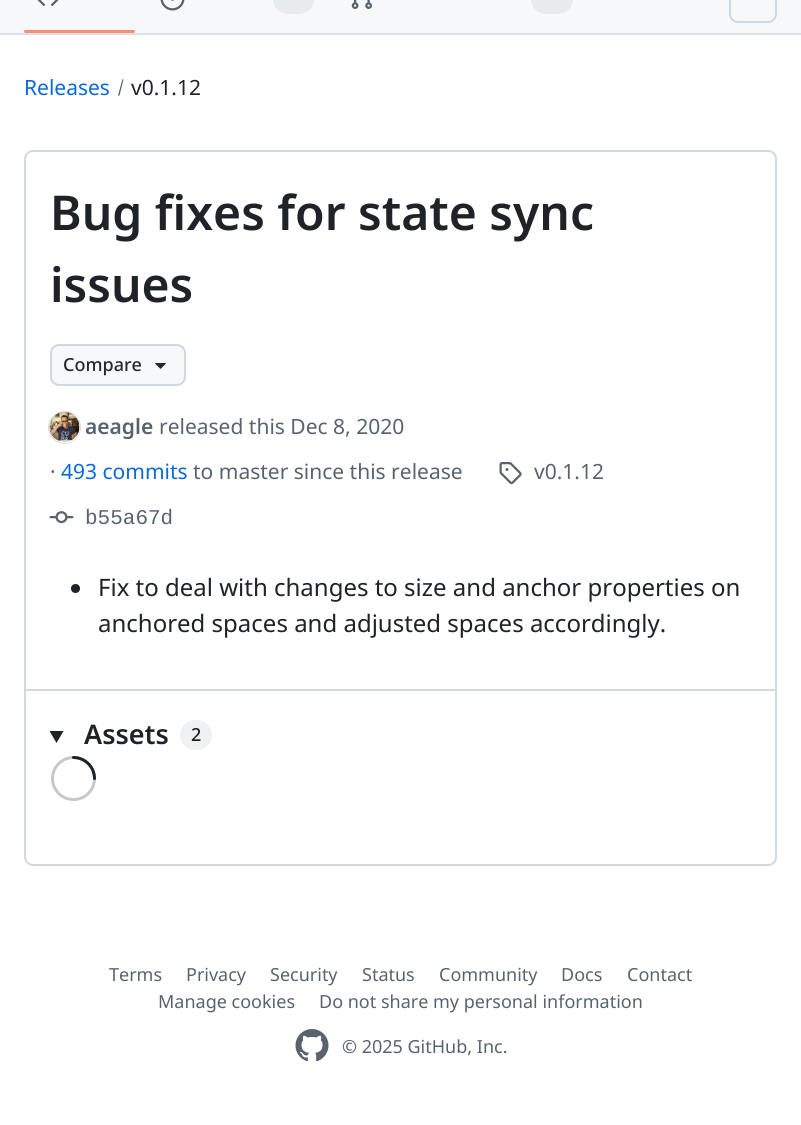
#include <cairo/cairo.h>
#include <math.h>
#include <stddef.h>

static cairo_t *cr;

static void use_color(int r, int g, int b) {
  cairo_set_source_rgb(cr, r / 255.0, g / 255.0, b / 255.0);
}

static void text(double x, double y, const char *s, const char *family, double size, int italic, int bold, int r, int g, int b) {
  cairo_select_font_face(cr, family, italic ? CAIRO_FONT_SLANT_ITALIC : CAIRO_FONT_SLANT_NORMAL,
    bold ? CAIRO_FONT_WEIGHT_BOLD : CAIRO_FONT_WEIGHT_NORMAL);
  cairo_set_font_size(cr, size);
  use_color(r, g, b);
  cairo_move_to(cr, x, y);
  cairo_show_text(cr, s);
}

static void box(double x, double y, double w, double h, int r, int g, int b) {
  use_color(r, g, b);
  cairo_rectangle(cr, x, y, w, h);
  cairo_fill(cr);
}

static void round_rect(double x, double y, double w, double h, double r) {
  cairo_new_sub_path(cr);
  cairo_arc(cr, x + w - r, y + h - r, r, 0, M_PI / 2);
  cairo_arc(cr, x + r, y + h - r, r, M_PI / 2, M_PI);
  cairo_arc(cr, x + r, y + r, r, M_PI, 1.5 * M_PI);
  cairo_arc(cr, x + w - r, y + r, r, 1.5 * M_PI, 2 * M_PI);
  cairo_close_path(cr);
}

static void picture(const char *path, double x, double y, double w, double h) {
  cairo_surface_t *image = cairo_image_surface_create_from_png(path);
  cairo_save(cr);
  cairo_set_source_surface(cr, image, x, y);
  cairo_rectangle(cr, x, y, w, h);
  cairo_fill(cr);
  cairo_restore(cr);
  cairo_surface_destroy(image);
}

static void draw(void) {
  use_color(255, 255, 255);
  cairo_paint(cr);
  box(0, 0, 801, 33, 246, 248, 250);
  box(0, 33, 801, 2, 220, 226, 232);
  picture("img_01.png", 37, 0, 22, 6);
  use_color(253, 140, 115);
  round_rect(24, 30, 111, 3, 1.5);
  cairo_fill(cr);
  picture("img_02.png", 160, 0, 25, 11);
  use_color(232, 235, 238);
  round_rect(273, -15, 41, 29, 15);
  cairo_fill(cr);
  picture("img_03.png", 351, 0, 21, 9);
  round_rect(531, -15, 42, 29, 15);
  cairo_fill(cr);
  round_rect(730, -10, 46, 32, 8);
  use_color(209, 217, 224);
  cairo_stroke(cr);
  use_color(89, 99, 110);
  cairo_new_path(cr);
  cairo_move_to(cr, 122.5, 79);
  cairo_line_to(cr, 123.5, 79.5);
  cairo_line_to(cr, 119.5, 95.5);
  cairo_line_to(cr, 118, 95.5);
  cairo_close_path(cr);
  cairo_fill(cr);
  round_rect(25, 151, 751, 714, 8);
  use_color(209, 217, 224);
  cairo_stroke(cr);
  box(26, 689, 750, 2, 209, 217, 224);
  use_color(246, 248, 250);
  round_rect(51, 345, 134, 40, 8);
  cairo_fill_preserve(cr);
  use_color(209, 217, 224);
  cairo_stroke(cr);
  picture("img_04.png", 155, 363, 11, 6);
  cairo_arc(cr, 64.5, 427.5, 15.5, 0, 2 * M_PI);
  use_color(221, 222, 223);
  cairo_stroke(cr);
  use_color(255, 255, 255);
  cairo_arc(cr, 65, 428, 15, 0, 2 * M_PI);
  cairo_fill(cr);
  picture("img_05.png", 49, 412, 31, 30);
  picture("img_06.png", 499, 462, 23, 23);
  picture("img_07.png", 49, 511, 25, 13);
  use_color(31, 35, 40);
  cairo_arc(cr, 75.5, 588.5, 4.5, 0, 2 * M_PI);
  cairo_fill(cr);
  cairo_new_path(cr);
  cairo_move_to(cr, 49.5, 731);
  cairo_line_to(cr, 63.5, 731);
  cairo_line_to(cr, 56.5, 743);
  cairo_close_path(cr);
  cairo_fill(cr);
  use_color(240, 241, 243);
  round_rect(180, 720, 32, 30, 15);
  cairo_fill(cr);
  cairo_arc(cr, 73.5, 778.5, 21, 0, 2 * M_PI);
  use_color(199, 200, 201);
  cairo_set_line_width(cr, 3);
  cairo_stroke(cr);
  cairo_new_path(cr);
  cairo_move_to(cr, 94.5, 778.5);
  cairo_curve_to(cr, 94.5, 767, 85, 757.5, 73.5, 757.5);
  use_color(31, 35, 40);
  cairo_set_line_cap(cr, CAIRO_LINE_CAP_ROUND);
  cairo_stroke(cr);
  picture("img_08.png", 295, 1029, 34, 33);
  text(24, 95, "Releases", "Noto Sans", 21, 0, 0, 9, 105, 218);
  text(131, 95, "v0.1.12", "Noto Sans", 21, 0, 0, 31, 35, 40);
  text(50, 230, "Bug fixes for state sync", "Noto Sans SemiBold", 48, 0, 0, 31, 35, 40);
  text(50, 302, "issues", "Noto Sans SemiBold", 48, 0, 0, 31, 35, 40);
  text(63, 371, "Compare", "Noto Sans Medium", 18, 0, 0, 37, 41, 46);
  text(85, 434, "aeagle", "Noto Sans SemiBold", 21, 0, 0, 89, 99, 110);
  text(159, 434, "released this Dec 8, 2020", "Noto Sans", 21, 0, 0, 89, 99, 110);
  text(50, 479, "·", "Noto Sans", 21, 0, 0, 89, 99, 110);
  text(61, 479, "493 commits", "Noto Sans", 21, 0, 0, 9, 105, 218);
  text(193, 479, "to master since this release", "Noto Sans", 21, 0, 0, 89, 99, 110);
  text(534, 479, "v0.1.12", "Noto Sans", 21, 0, 0, 89, 99, 110);
  text(85, 524, "b55a67d", "Liberation Mono", 21, 0, 0, 89, 99, 110);
  text(98, 596, "Fix to deal with changes to size and anchor properties on", "Noto Sans", 24, 0, 0, 31, 35, 40);
  text(98, 632, "anchored spaces and adjusted spaces accordingly.", "Noto Sans", 24, 0, 0, 31, 35, 40);
  text(84, 744, "Assets", "Noto Sans SemiBold", 27, 0, 0, 31, 35, 40);
  text(191, 741, "2", "Noto Sans Medium", 18, 0, 0, 31, 35, 40);
  text(109, 981, "Terms", "Noto Sans", 18, 0, 0, 89, 99, 110);
  text(186, 981, "Privacy", "Noto Sans", 18, 0, 0, 89, 99, 110);
  text(270, 981, "Security", "Noto Sans", 18, 0, 0, 89, 99, 110);
  text(362, 981, "Status", "Noto Sans", 18, 0, 0, 89, 99, 110);
  text(439, 981, "Community", "Noto Sans", 18, 0, 0, 89, 99, 110);
  text(561, 981, "Docs", "Noto Sans", 18, 0, 0, 89, 99, 110);
  text(627, 981, "Contact", "Noto Sans", 18, 0, 0, 89, 99, 110);
  text(158, 1008, "Manage cookies", "Noto Sans", 18, 0, 0, 89, 99, 110);
  text(319, 1008, "Do not share my personal information", "Noto Sans", 18, 0, 0, 89, 99, 110);
  text(342, 1053, "© 2025 GitHub, Inc.", "Noto Sans", 18, 0, 0, 89, 99, 110);
}

int main(void) {
  cairo_surface_t *surface = cairo_image_surface_create(CAIRO_FORMAT_RGB24, 801, 1125);
  cr = cairo_create(surface);
  cairo_font_options_t *options = cairo_font_options_create();
  cairo_font_options_set_hint_metrics(options, CAIRO_HINT_METRICS_OFF);
  cairo_font_options_set_hint_style(options, CAIRO_HINT_STYLE_NONE);
  cairo_set_font_options(cr, options);
  cairo_set_miter_limit(cr, 4);
  draw();
  cairo_surface_write_to_png(surface, "out.png");
  cairo_font_options_destroy(options);
  cairo_destroy(cr);
  cairo_surface_destroy(surface);
  return 0;
}
